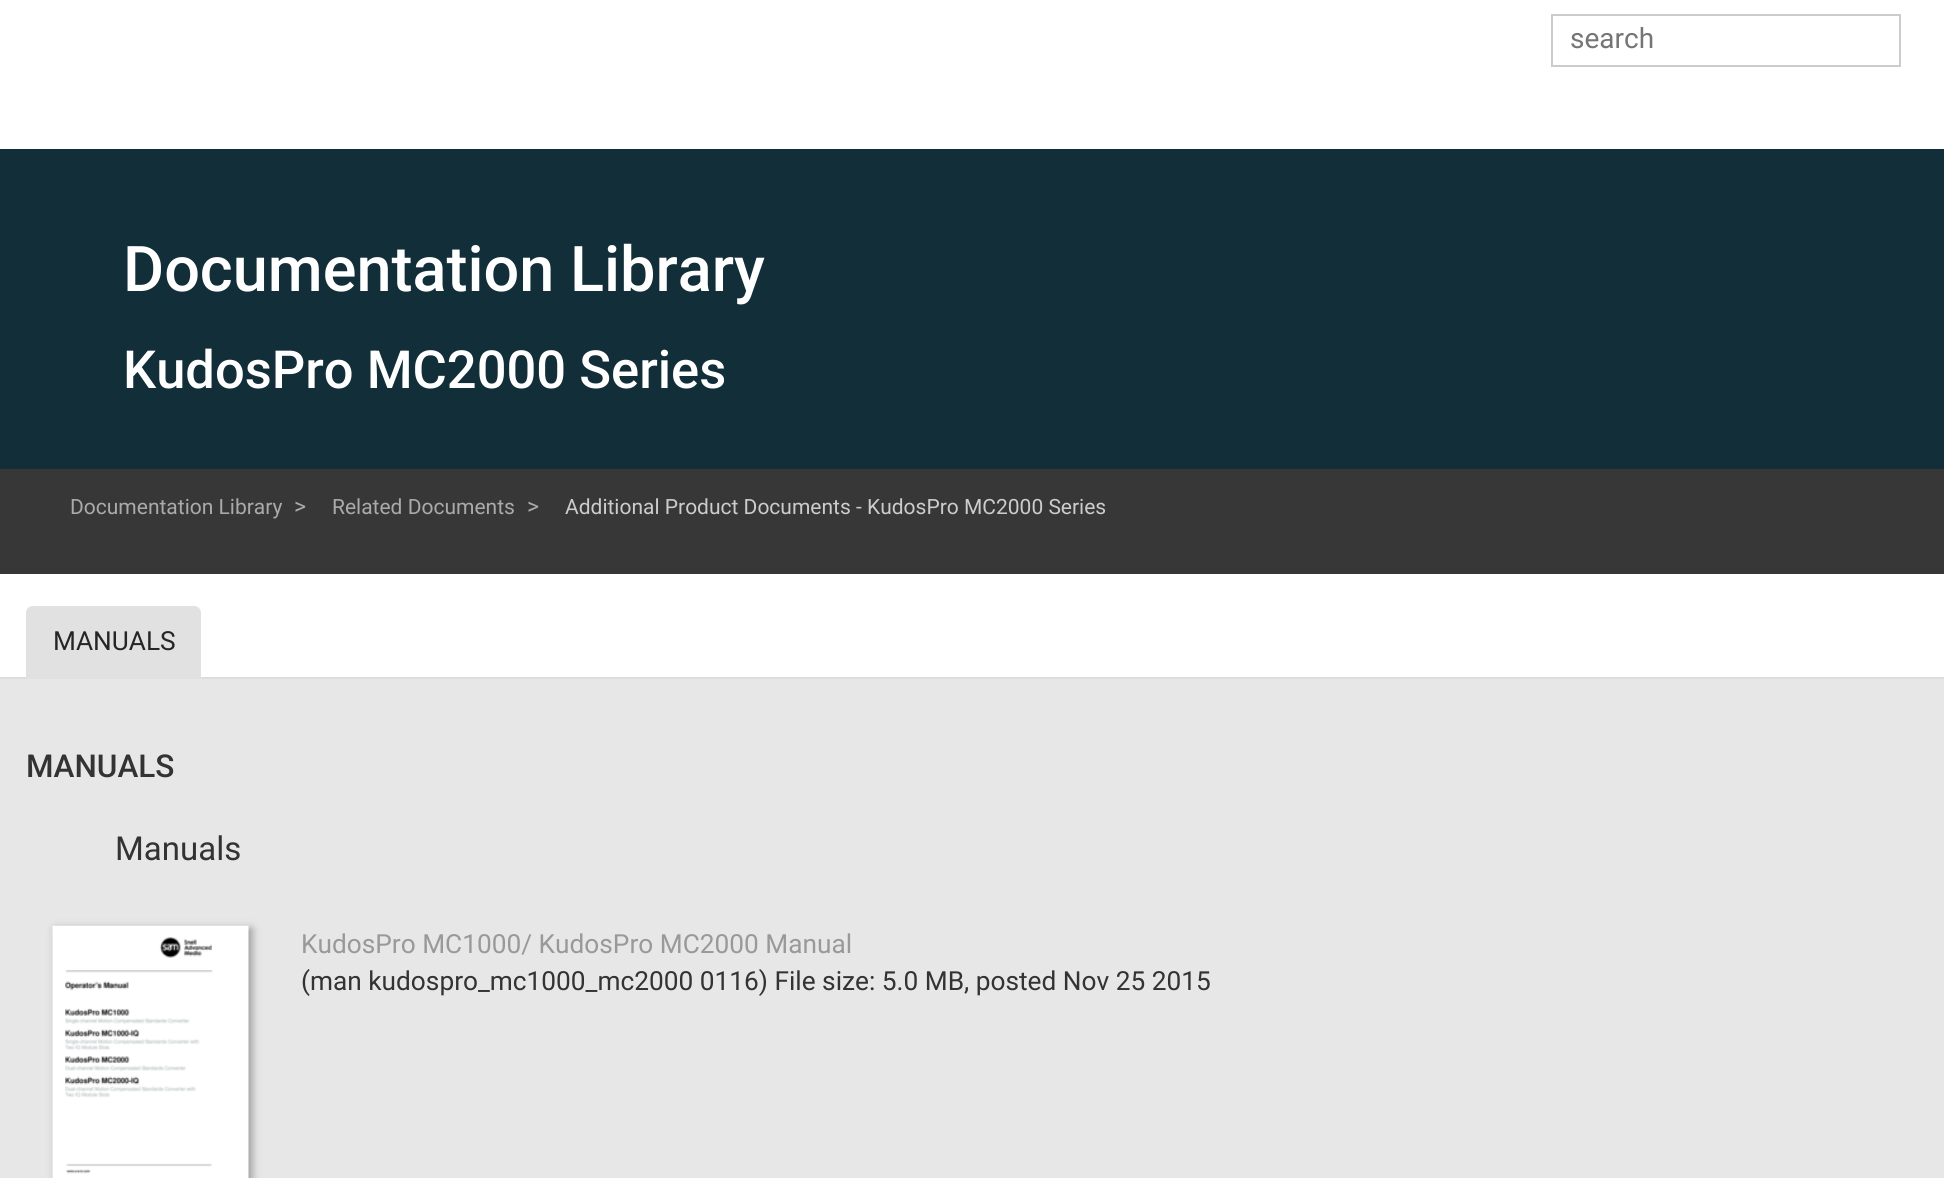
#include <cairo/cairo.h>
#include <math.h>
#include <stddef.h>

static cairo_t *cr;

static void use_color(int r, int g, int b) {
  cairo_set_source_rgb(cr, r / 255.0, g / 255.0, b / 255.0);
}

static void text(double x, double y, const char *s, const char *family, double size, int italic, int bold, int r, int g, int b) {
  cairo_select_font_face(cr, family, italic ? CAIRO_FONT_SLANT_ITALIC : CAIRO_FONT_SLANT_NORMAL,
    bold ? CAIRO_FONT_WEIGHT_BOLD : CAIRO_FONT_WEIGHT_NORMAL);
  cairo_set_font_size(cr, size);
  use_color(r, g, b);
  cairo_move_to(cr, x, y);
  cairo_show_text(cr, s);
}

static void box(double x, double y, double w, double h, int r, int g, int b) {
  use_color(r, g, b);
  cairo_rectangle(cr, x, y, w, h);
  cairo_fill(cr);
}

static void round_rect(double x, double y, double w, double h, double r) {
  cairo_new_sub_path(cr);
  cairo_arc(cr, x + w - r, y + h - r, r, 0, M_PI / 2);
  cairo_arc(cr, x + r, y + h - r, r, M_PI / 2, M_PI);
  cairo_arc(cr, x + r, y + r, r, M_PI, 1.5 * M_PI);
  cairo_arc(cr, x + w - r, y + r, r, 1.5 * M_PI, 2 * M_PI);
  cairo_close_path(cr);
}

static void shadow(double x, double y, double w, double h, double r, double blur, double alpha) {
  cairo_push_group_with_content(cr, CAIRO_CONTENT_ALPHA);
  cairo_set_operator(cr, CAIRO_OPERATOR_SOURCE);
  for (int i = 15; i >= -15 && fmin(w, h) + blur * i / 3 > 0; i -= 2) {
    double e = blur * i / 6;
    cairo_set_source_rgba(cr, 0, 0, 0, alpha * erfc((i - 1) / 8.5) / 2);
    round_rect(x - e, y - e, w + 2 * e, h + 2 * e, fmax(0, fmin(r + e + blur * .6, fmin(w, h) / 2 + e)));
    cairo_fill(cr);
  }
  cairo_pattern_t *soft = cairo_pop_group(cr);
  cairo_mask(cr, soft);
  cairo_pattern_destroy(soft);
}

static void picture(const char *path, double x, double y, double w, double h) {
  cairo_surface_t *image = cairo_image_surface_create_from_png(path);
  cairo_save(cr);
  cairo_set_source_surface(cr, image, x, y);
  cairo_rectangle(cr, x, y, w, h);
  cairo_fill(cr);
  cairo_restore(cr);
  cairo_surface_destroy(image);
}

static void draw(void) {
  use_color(255, 255, 255);
  cairo_paint(cr);
  cairo_rectangle(cr, 1552, 15, 348, 51);
  use_color(204, 204, 204);
  cairo_stroke(cr);
  box(0, 149, 1944, 320, 18, 46, 57);
  box(0, 469, 1944, 105, 55, 55, 55);
  box(0, 677, 1944, 2, 221, 221, 221);
  use_color(225, 225, 225);
  cairo_new_path(cr);
  cairo_move_to(cr, 33, 606);
  cairo_line_to(cr, 194, 606);
  cairo_curve_to(cr, 198, 606, 201, 609, 201, 613);
  cairo_line_to(cr, 201, 679);
  cairo_line_to(cr, 26, 679);
  cairo_line_to(cr, 26, 613);
  cairo_curve_to(cr, 26, 609, 29, 606, 33, 606);
  cairo_close_path(cr);
  cairo_fill(cr);
  box(0, 679, 1944, 499, 231, 231, 231);
  use_color(153, 153, 153);
  shadow(56, 929, 196, 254, 0, 4.5, 1);
  picture("img_01.png", 52, 925, 197, 253);
  text(1570, 48, "search", "Roboto", 28, 0, 0, 117, 117, 117);
  text(123, 291, "Documentation Library", "Roboto Medium", 63, 0, 0, 255, 255, 255);
  text(123, 388, "KudosPro MC2000 Series", "Roboto Medium", 52.5, 0, 0, 255, 255, 255);
  text(70, 514, "Documentation Library", "Roboto", 21, 0, 0, 170, 170, 170);
  text(294, 514, ">", "Roboto", 23, 0, 0, 170, 170, 170);
  text(332, 514, "Related Documents", "Roboto", 21, 0, 0, 170, 170, 170);
  text(527, 514, ">", "Roboto", 23, 0, 0, 170, 170, 170);
  text(565, 514, "Additional Product Documents - KudosPro MC2000 Series", "Roboto", 21, 0, 0, 204, 204, 204);
  text(53, 650, "MANUALS", "Roboto", 26.25, 0, 0, 38, 38, 38);
  text(26, 777, "MANUALS", "Roboto Medium", 31.5, 0, 0, 51, 51, 51);
  text(115, 860, "Manuals", "Roboto", 33, 0, 0, 51, 51, 51);
  text(301, 953, "KudosPro MC1000/ KudosPro MC2000 Manual", "Roboto", 26.25, 0, 0, 153, 153, 153);
  text(301, 990, "(man kudospro_mc1000_mc2000 0116) File size: 5.0 MB, posted Nov 25 2015", "Roboto", 26.25, 0, 0, 51, 51, 51);
}

int main(void) {
  cairo_surface_t *surface = cairo_image_surface_create(CAIRO_FORMAT_RGB24, 1944, 1178);
  cr = cairo_create(surface);
  cairo_font_options_t *options = cairo_font_options_create();
  cairo_font_options_set_hint_metrics(options, CAIRO_HINT_METRICS_OFF);
  cairo_font_options_set_hint_style(options, CAIRO_HINT_STYLE_NONE);
  cairo_set_font_options(cr, options);
  cairo_set_miter_limit(cr, 4);
  draw();
  cairo_surface_write_to_png(surface, "out.png");
  cairo_font_options_destroy(options);
  cairo_destroy(cr);
  cairo_surface_destroy(surface);
  return 0;
}
